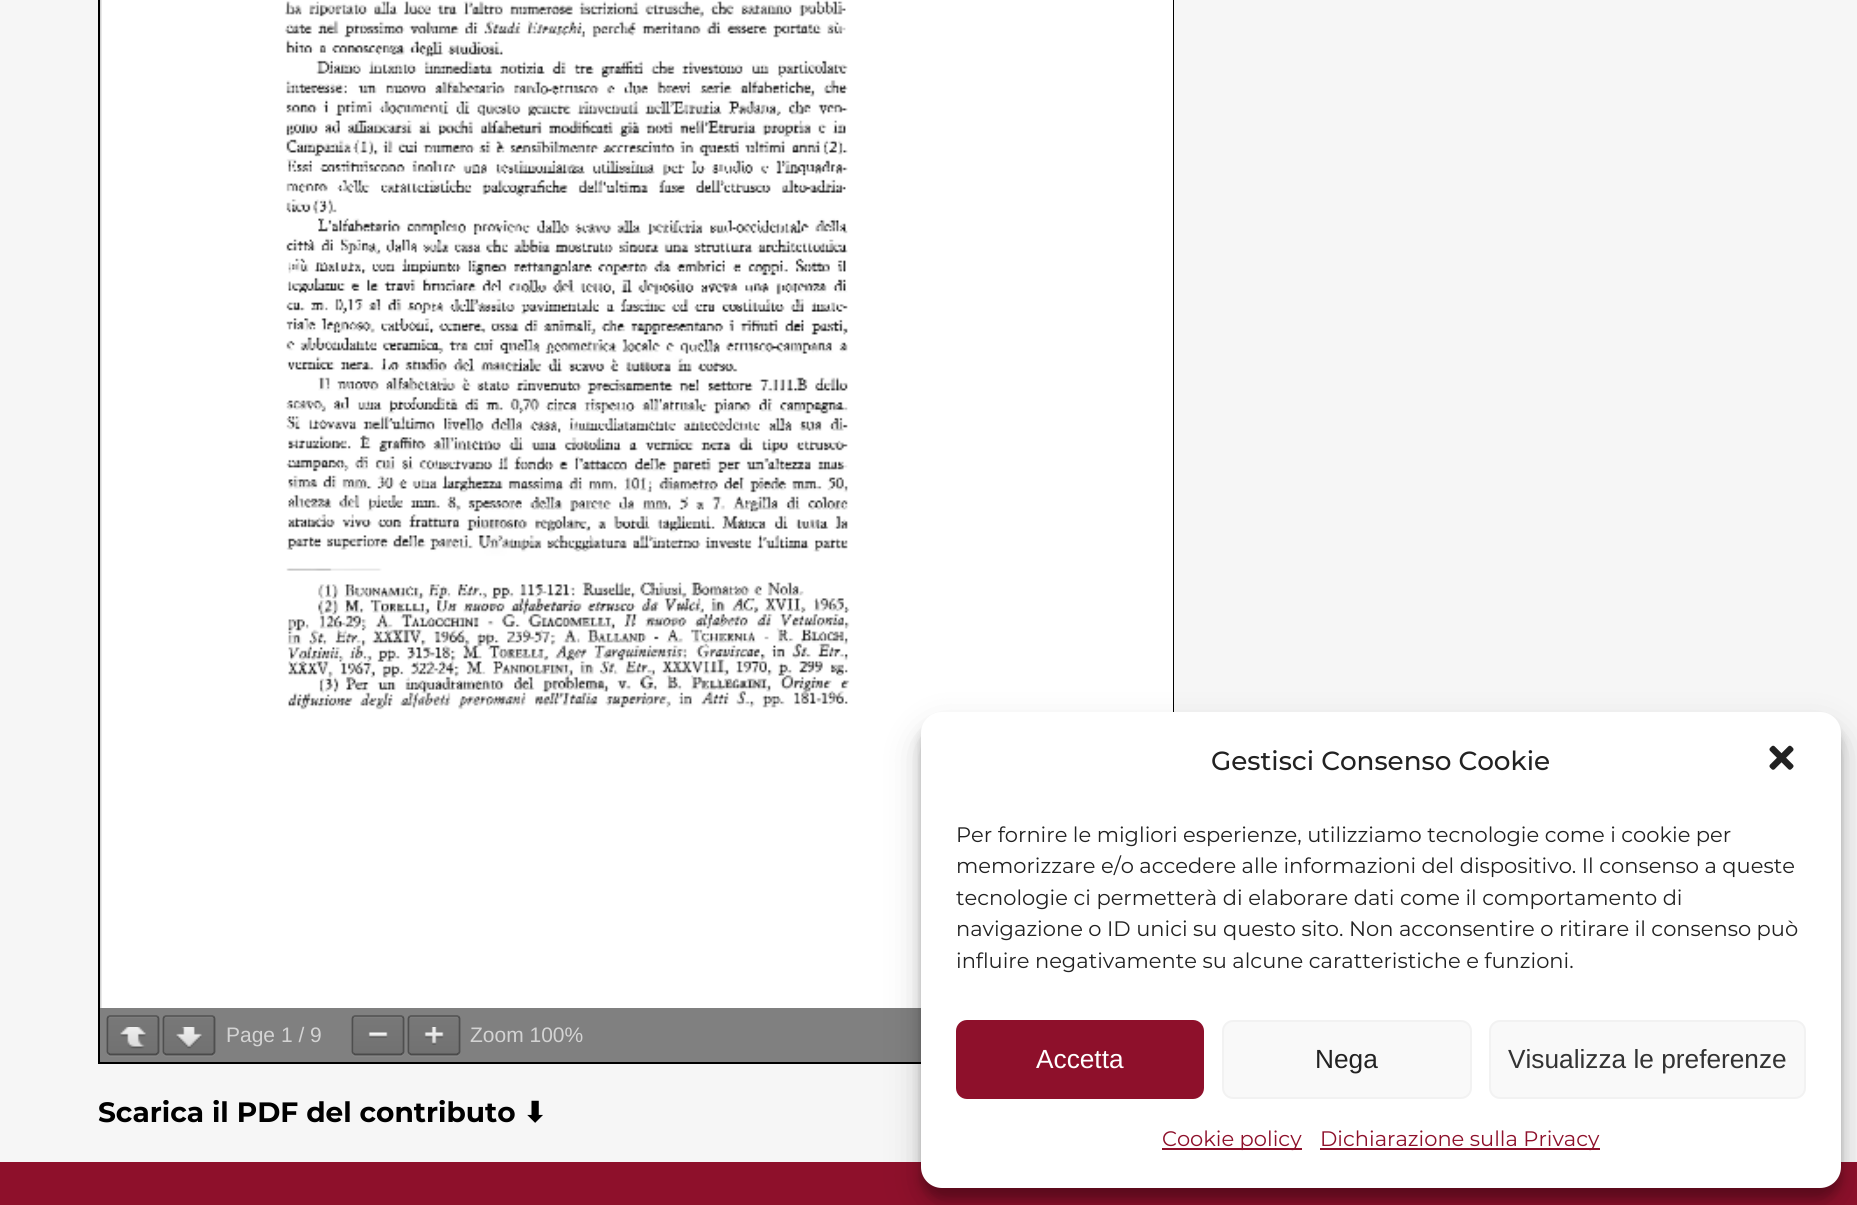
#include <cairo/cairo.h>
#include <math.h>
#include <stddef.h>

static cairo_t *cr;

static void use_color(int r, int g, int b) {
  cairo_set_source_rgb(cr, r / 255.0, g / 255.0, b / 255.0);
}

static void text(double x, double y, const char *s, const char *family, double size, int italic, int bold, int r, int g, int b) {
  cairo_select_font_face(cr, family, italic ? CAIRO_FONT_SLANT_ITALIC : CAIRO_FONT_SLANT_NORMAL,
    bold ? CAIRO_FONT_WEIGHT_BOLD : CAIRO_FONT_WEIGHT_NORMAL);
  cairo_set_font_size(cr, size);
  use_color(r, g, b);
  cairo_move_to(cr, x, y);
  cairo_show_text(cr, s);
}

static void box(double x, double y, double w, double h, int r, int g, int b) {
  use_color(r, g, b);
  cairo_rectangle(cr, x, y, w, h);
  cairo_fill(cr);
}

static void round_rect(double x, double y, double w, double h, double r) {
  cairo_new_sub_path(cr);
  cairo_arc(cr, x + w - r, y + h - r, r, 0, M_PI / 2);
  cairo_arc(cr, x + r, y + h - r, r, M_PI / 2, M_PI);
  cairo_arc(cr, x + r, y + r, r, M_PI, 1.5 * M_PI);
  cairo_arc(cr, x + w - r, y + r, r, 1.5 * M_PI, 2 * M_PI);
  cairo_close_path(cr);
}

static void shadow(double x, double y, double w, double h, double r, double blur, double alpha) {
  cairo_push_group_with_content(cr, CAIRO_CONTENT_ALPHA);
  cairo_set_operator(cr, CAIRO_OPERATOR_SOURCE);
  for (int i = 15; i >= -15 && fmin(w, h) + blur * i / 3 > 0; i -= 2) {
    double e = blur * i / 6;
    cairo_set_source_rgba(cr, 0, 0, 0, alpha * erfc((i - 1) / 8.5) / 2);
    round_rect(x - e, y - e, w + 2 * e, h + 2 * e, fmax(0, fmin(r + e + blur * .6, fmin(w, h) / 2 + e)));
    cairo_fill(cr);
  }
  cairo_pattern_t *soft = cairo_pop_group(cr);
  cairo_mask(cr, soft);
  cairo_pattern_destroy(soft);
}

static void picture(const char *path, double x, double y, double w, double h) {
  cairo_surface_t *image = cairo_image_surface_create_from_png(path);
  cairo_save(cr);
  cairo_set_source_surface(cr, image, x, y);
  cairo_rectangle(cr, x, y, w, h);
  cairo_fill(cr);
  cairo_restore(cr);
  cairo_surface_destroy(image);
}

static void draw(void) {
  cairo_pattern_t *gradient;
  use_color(246, 246, 246);
  cairo_paint(cr);
  box(100, 0, 2, 1008, 211, 211, 211);
  cairo_rectangle(cr, 99, -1, 1074, 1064);
  use_color(0, 0, 0);
  cairo_stroke(cr);
  box(850, 0, 323, 1008, 255, 255, 255);
  picture("img_01.png", 101, 0, 749, 1008);
  box(100, 1008, 821, 54, 128, 128, 128);
  use_color(134, 134, 134);
  cairo_new_path(cr);
  cairo_move_to(cr, 107, 1053);
  cairo_curve_to(cr, 107, 1055, 109, 1057, 111, 1057);
  cairo_line_to(cr, 155, 1057);
  cairo_curve_to(cr, 157, 1057, 159, 1055, 159, 1053);
  cairo_curve_to(cr, 158, 1054, 157, 1055, 156, 1055);
  cairo_line_to(cr, 110, 1055);
  cairo_curve_to(cr, 109, 1055, 108, 1054, 107, 1053);
  cairo_close_path(cr);
  cairo_fill(cr);
  gradient = cairo_pattern_create_linear(133, 1017, 133, 1054);
  cairo_pattern_add_color_stop_rgba(gradient, 0, 0.471, 0.471, 0.471, 1);
  cairo_pattern_add_color_stop_rgba(gradient, 1, 0.443, 0.443, 0.443, 1);
  cairo_set_source(cr, gradient);
  cairo_pattern_destroy(gradient);
  round_rect(109, 1017, 49, 37, 2);
  cairo_fill(cr);
  cairo_set_source_rgba(cr, 1, 1, 1, 0.05);
  cairo_new_path(cr);
  cairo_move_to(cr, 110, 1018);
  cairo_line_to(cr, 156, 1018);
  cairo_curve_to(cr, 157, 1018, 158, 1019, 158, 1020);
  cairo_curve_to(cr, 158, 1015, 152, 1017, 148, 1017);
  cairo_line_to(cr, 110, 1017);
  cairo_line_to(cr, 109, 1018);
  cairo_close_path(cr);
  cairo_fill(cr);
  cairo_new_path(cr);
  cairo_move_to(cr, 108.5, 1016.5);
  cairo_line_to(cr, 110, 1016);
  cairo_line_to(cr, 156, 1016);
  cairo_line_to(cr, 157.5, 1016.5);
  cairo_set_source_rgba(cr, 0, 0, 0, 0.32);
  cairo_set_line_width(cr, 1.8);
  cairo_stroke(cr);
  cairo_new_path(cr);
  cairo_move_to(cr, 157.5, 1016.5);
  cairo_curve_to(cr, 158, 1017, 158.5, 1018, 158.5, 1018.5);
  cairo_line_to(cr, 158.5, 1052);
  cairo_curve_to(cr, 158.5, 1052.5, 158, 1053, 157.5, 1053.5);
  cairo_set_source_rgba(cr, 0, 0, 0, 0.38);
  cairo_stroke(cr);
  cairo_new_path(cr);
  cairo_move_to(cr, 157.5, 1053.5);
  cairo_line_to(cr, 156, 1054.5);
  cairo_line_to(cr, 110, 1054.5);
  cairo_line_to(cr, 108.5, 1053.5);
  cairo_set_source_rgba(cr, 0, 0, 0, 0.42);
  cairo_stroke(cr);
  cairo_new_path(cr);
  cairo_move_to(cr, 108.5, 1053.5);
  cairo_curve_to(cr, 108, 1053, 107.5, 1052.5, 107.5, 1052);
  cairo_line_to(cr, 107.5, 1018.5);
  cairo_curve_to(cr, 107.5, 1018, 108, 1017, 108.5, 1016.5);
  cairo_set_source_rgba(cr, 0, 0, 0, 0.38);
  cairo_stroke(cr);
  picture("img_02.png", 120, 1027, 26, 22);
  use_color(134, 134, 134);
  cairo_new_path(cr);
  cairo_move_to(cr, 163, 1053);
  cairo_curve_to(cr, 163, 1055, 165, 1057, 167, 1057);
  cairo_line_to(cr, 211, 1057);
  cairo_curve_to(cr, 213, 1057, 215, 1055, 215, 1053);
  cairo_curve_to(cr, 214, 1054, 213, 1055, 212, 1055);
  cairo_line_to(cr, 166, 1055);
  cairo_curve_to(cr, 165, 1055, 164, 1054, 163, 1053);
  cairo_close_path(cr);
  cairo_fill(cr);
  gradient = cairo_pattern_create_linear(189, 1017, 189, 1054);
  cairo_pattern_add_color_stop_rgba(gradient, 0, 0.471, 0.471, 0.471, 1);
  cairo_pattern_add_color_stop_rgba(gradient, 1, 0.443, 0.443, 0.443, 1);
  cairo_set_source(cr, gradient);
  cairo_pattern_destroy(gradient);
  round_rect(165, 1017, 49, 37, 2);
  cairo_fill(cr);
  cairo_set_source_rgba(cr, 1, 1, 1, 0.05);
  cairo_new_path(cr);
  cairo_move_to(cr, 166, 1018);
  cairo_line_to(cr, 212, 1018);
  cairo_curve_to(cr, 213, 1018, 214, 1019, 214, 1020);
  cairo_curve_to(cr, 214, 1015, 208, 1017, 204, 1017);
  cairo_line_to(cr, 166, 1017);
  cairo_line_to(cr, 165, 1018);
  cairo_close_path(cr);
  cairo_fill(cr);
  cairo_new_path(cr);
  cairo_move_to(cr, 164.5, 1016.5);
  cairo_line_to(cr, 166, 1016);
  cairo_line_to(cr, 212, 1016);
  cairo_line_to(cr, 213.5, 1016.5);
  cairo_set_source_rgba(cr, 0, 0, 0, 0.32);
  cairo_stroke(cr);
  cairo_new_path(cr);
  cairo_move_to(cr, 213.5, 1016.5);
  cairo_curve_to(cr, 214, 1017, 214.5, 1018, 214.5, 1018.5);
  cairo_line_to(cr, 214.5, 1052);
  cairo_curve_to(cr, 214.5, 1052.5, 214, 1053, 213.5, 1053.5);
  cairo_set_source_rgba(cr, 0, 0, 0, 0.38);
  cairo_stroke(cr);
  cairo_new_path(cr);
  cairo_move_to(cr, 213.5, 1053.5);
  cairo_line_to(cr, 212, 1054.5);
  cairo_line_to(cr, 166, 1054.5);
  cairo_line_to(cr, 164.5, 1053.5);
  cairo_set_source_rgba(cr, 0, 0, 0, 0.42);
  cairo_stroke(cr);
  cairo_new_path(cr);
  cairo_move_to(cr, 164.5, 1053.5);
  cairo_curve_to(cr, 164, 1053, 163.5, 1052.5, 163.5, 1052);
  cairo_line_to(cr, 163.5, 1018.5);
  cairo_curve_to(cr, 163.5, 1018, 164, 1017, 164.5, 1016.5);
  cairo_set_source_rgba(cr, 0, 0, 0, 0.38);
  cairo_stroke(cr);
  picture("img_03.png", 176, 1027, 26, 22);
  use_color(134, 134, 134);
  cairo_new_path(cr);
  cairo_move_to(cr, 352, 1053);
  cairo_curve_to(cr, 352, 1055, 354, 1057, 356, 1057);
  cairo_line_to(cr, 400, 1057);
  cairo_curve_to(cr, 402, 1057, 404, 1055, 404, 1053);
  cairo_curve_to(cr, 403, 1054, 402, 1055, 401, 1055);
  cairo_line_to(cr, 355, 1055);
  cairo_curve_to(cr, 354, 1055, 353, 1054, 352, 1053);
  cairo_close_path(cr);
  cairo_fill(cr);
  gradient = cairo_pattern_create_linear(378, 1017, 378, 1054);
  cairo_pattern_add_color_stop_rgba(gradient, 0, 0.471, 0.471, 0.471, 1);
  cairo_pattern_add_color_stop_rgba(gradient, 1, 0.443, 0.443, 0.443, 1);
  cairo_set_source(cr, gradient);
  cairo_pattern_destroy(gradient);
  round_rect(354, 1017, 49, 37, 2);
  cairo_fill(cr);
  cairo_set_source_rgba(cr, 1, 1, 1, 0.05);
  cairo_new_path(cr);
  cairo_move_to(cr, 355, 1018);
  cairo_line_to(cr, 401, 1018);
  cairo_curve_to(cr, 402, 1018, 402, 1019, 402, 1020);
  cairo_line_to(cr, 402, 1054);
  cairo_curve_to(cr, 404, 1053, 403, 1047, 403, 1046);
  cairo_line_to(cr, 403, 1036);
  cairo_curve_to(cr, 403, 1013, 408, 1017, 386, 1017);
  cairo_line_to(cr, 355, 1017);
  cairo_curve_to(cr, 354, 1018, 354, 1019, 354, 1020);
  cairo_curve_to(cr, 354, 1019, 354, 1018, 355, 1018);
  cairo_close_path(cr);
  cairo_fill(cr);
  cairo_new_path(cr);
  cairo_move_to(cr, 353.5, 1016.5);
  cairo_line_to(cr, 355, 1016);
  cairo_line_to(cr, 401, 1016);
  cairo_line_to(cr, 402.5, 1016.5);
  use_color(87, 87, 87);
  cairo_stroke(cr);
  cairo_new_path(cr);
  cairo_move_to(cr, 402.5, 1016.5);
  cairo_curve_to(cr, 403, 1017, 403.5, 1018, 403.5, 1018.5);
  cairo_line_to(cr, 403.5, 1052);
  cairo_curve_to(cr, 403.5, 1052.5, 403, 1053, 402.5, 1053.5);
  cairo_set_source_rgba(cr, 0, 0, 0, 0.38);
  cairo_stroke(cr);
  cairo_new_path(cr);
  cairo_move_to(cr, 402.5, 1053.5);
  cairo_line_to(cr, 401, 1054.5);
  cairo_line_to(cr, 355, 1054.5);
  cairo_line_to(cr, 353.5, 1053.5);
  cairo_set_source_rgba(cr, 0, 0, 0, 0.42);
  cairo_stroke(cr);
  cairo_new_path(cr);
  cairo_move_to(cr, 353.5, 1053.5);
  cairo_curve_to(cr, 353, 1053, 352.5, 1052.5, 352.5, 1052);
  cairo_line_to(cr, 352.5, 1018.5);
  cairo_curve_to(cr, 352.5, 1018, 353, 1017, 353.5, 1016.5);
  cairo_set_source_rgba(cr, 0, 0, 0, 0.38);
  cairo_stroke(cr);
  picture("img_04.png", 368, 1032, 20, 6);
  use_color(134, 134, 134);
  cairo_new_path(cr);
  cairo_move_to(cr, 408, 1053);
  cairo_curve_to(cr, 408, 1055, 410, 1057, 412, 1057);
  cairo_line_to(cr, 456, 1057);
  cairo_curve_to(cr, 458, 1057, 460, 1055, 460, 1053);
  cairo_curve_to(cr, 459, 1054, 458, 1055, 457, 1055);
  cairo_line_to(cr, 411, 1055);
  cairo_curve_to(cr, 410, 1055, 409, 1054, 408, 1053);
  cairo_close_path(cr);
  cairo_fill(cr);
  gradient = cairo_pattern_create_linear(434, 1017, 434, 1054);
  cairo_pattern_add_color_stop_rgba(gradient, 0, 0.471, 0.471, 0.471, 1);
  cairo_pattern_add_color_stop_rgba(gradient, 1, 0.443, 0.443, 0.443, 1);
  cairo_set_source(cr, gradient);
  cairo_pattern_destroy(gradient);
  round_rect(410, 1017, 49, 37, 2);
  cairo_fill(cr);
  cairo_set_source_rgba(cr, 1, 1, 1, 0.05);
  cairo_new_path(cr);
  cairo_move_to(cr, 411, 1018);
  cairo_line_to(cr, 457, 1018);
  cairo_curve_to(cr, 458, 1018, 458, 1019, 458, 1020);
  cairo_line_to(cr, 458, 1054);
  cairo_curve_to(cr, 460, 1053, 459, 1047, 459, 1046);
  cairo_line_to(cr, 459, 1036);
  cairo_curve_to(cr, 459, 1013, 464, 1017, 442, 1017);
  cairo_line_to(cr, 411, 1017);
  cairo_curve_to(cr, 410, 1018, 410, 1019, 410, 1020);
  cairo_curve_to(cr, 410, 1019, 410, 1018, 411, 1018);
  cairo_close_path(cr);
  cairo_fill(cr);
  cairo_new_path(cr);
  cairo_move_to(cr, 409.5, 1016.5);
  cairo_line_to(cr, 411, 1016);
  cairo_line_to(cr, 457, 1016);
  cairo_line_to(cr, 458.5, 1016.5);
  use_color(87, 87, 87);
  cairo_stroke(cr);
  cairo_new_path(cr);
  cairo_move_to(cr, 458.5, 1016.5);
  cairo_curve_to(cr, 459, 1017, 459.5, 1018, 459.5, 1018.5);
  cairo_line_to(cr, 459.5, 1052);
  cairo_curve_to(cr, 459.5, 1052.5, 459, 1053, 458.5, 1053.5);
  cairo_set_source_rgba(cr, 0, 0, 0, 0.38);
  cairo_stroke(cr);
  cairo_new_path(cr);
  cairo_move_to(cr, 458.5, 1053.5);
  cairo_line_to(cr, 457, 1054.5);
  cairo_line_to(cr, 411, 1054.5);
  cairo_line_to(cr, 409.5, 1053.5);
  cairo_set_source_rgba(cr, 0, 0, 0, 0.42);
  cairo_stroke(cr);
  cairo_new_path(cr);
  cairo_move_to(cr, 409.5, 1053.5);
  cairo_curve_to(cr, 409, 1053, 408.5, 1052.5, 408.5, 1052);
  cairo_line_to(cr, 408.5, 1018.5);
  cairo_curve_to(cr, 408.5, 1018, 409, 1017, 409.5, 1016.5);
  cairo_set_source_rgba(cr, 0, 0, 0, 0.38);
  cairo_stroke(cr);
  picture("img_05.png", 424, 1027, 20, 18);
  box(0, 1162, 1857, 43, 142, 16, 43);
  use_color(0, 0, 0);
  shadow(921, 723, 920, 476, 21, 5, 0.23);
  shadow(921, 730, 920, 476, 21, 17.5, 0.19);
  use_color(255, 255, 255);
  round_rect(921, 712, 920, 476, 21);
  cairo_fill(cr);
  picture("img_06.png", 1769, 745, 25, 25);
  use_color(142, 16, 43);
  round_rect(957, 1021, 246, 77, 10);
  cairo_fill_preserve(cr);
  cairo_set_line_width(cr, 2);
  cairo_stroke(cr);
  use_color(249, 249, 249);
  round_rect(1223, 1021, 248, 77, 10);
  cairo_fill_preserve(cr);
  use_color(242, 242, 242);
  cairo_stroke(cr);
  use_color(249, 249, 249);
  round_rect(1490, 1021, 315, 77, 10);
  cairo_fill_preserve(cr);
  use_color(242, 242, 242);
  cairo_stroke(cr);
  box(1162, 1148, 140, 2, 142, 16, 43);
  box(1320, 1148, 280, 2, 142, 16, 43);
  text(226, 1042, "Page 1 / 9", "Liberation Sans", 21, 0, 0, 211, 211, 211);
  text(470, 1042, "Zoom 100%", "Liberation Sans", 21, 0, 0, 211, 211, 211);
  text(98, 1122, "Scarica il PDF del contributo", "Montserrat", 28, 0, 1, 0, 0, 0);
  text(523, 1122, "⬇", "DejaVu Sans", 28, 0, 1, 0, 0, 0);
  text(1211, 770, "Gestisci Consenso Cookie", "Montserrat Medium", 26.25, 0, 0, 34, 34, 34);
  text(956, 842, "Per fornire le migliori esperienze, utilizziamo tecnologie come i cookie per", "Montserrat", 21, 0, 0, 34, 34, 34);
  text(956, 873, "memorizzare e/o accedere alle informazioni del dispositivo. Il consenso a queste", "Montserrat", 21, 0, 0, 34, 34, 34);
  text(956, 905, "tecnologie ci permetterà di elaborare dati come il comportamento di", "Montserrat", 21, 0, 0, 34, 34, 34);
  text(956, 936, "navigazione o ID unici su questo sito. Non acconsentire o ritirare il consenso può", "Montserrat", 21, 0, 0, 34, 34, 34);
  text(956, 968, "influire negativamente su alcune caratteristiche e funzioni.", "Montserrat", 21, 0, 0, 34, 34, 34);
  text(1036, 1068, "Accetta", "Liberation Sans", 26.25, 0, 0, 255, 255, 255);
  text(1315, 1068, "Nega", "Liberation Sans", 26.25, 0, 0, 34, 34, 34);
  text(1508, 1068, "Visualizza le preferenze", "Liberation Sans", 26.25, 0, 0, 51, 51, 51);
  text(1162, 1146, "Cookie policy", "Montserrat", 21, 0, 0, 142, 16, 43);
  text(1320, 1146, "Dichiarazione sulla Privacy", "Montserrat", 21, 0, 0, 142, 16, 43);
}

int main(void) {
  cairo_surface_t *surface = cairo_image_surface_create(CAIRO_FORMAT_RGB24, 1857, 1205);
  cr = cairo_create(surface);
  cairo_font_options_t *options = cairo_font_options_create();
  cairo_font_options_set_hint_metrics(options, CAIRO_HINT_METRICS_OFF);
  cairo_font_options_set_hint_style(options, CAIRO_HINT_STYLE_NONE);
  cairo_set_font_options(cr, options);
  cairo_set_miter_limit(cr, 4);
  draw();
  cairo_surface_write_to_png(surface, "out.png");
  cairo_font_options_destroy(options);
  cairo_destroy(cr);
  cairo_surface_destroy(surface);
  return 0;
}
